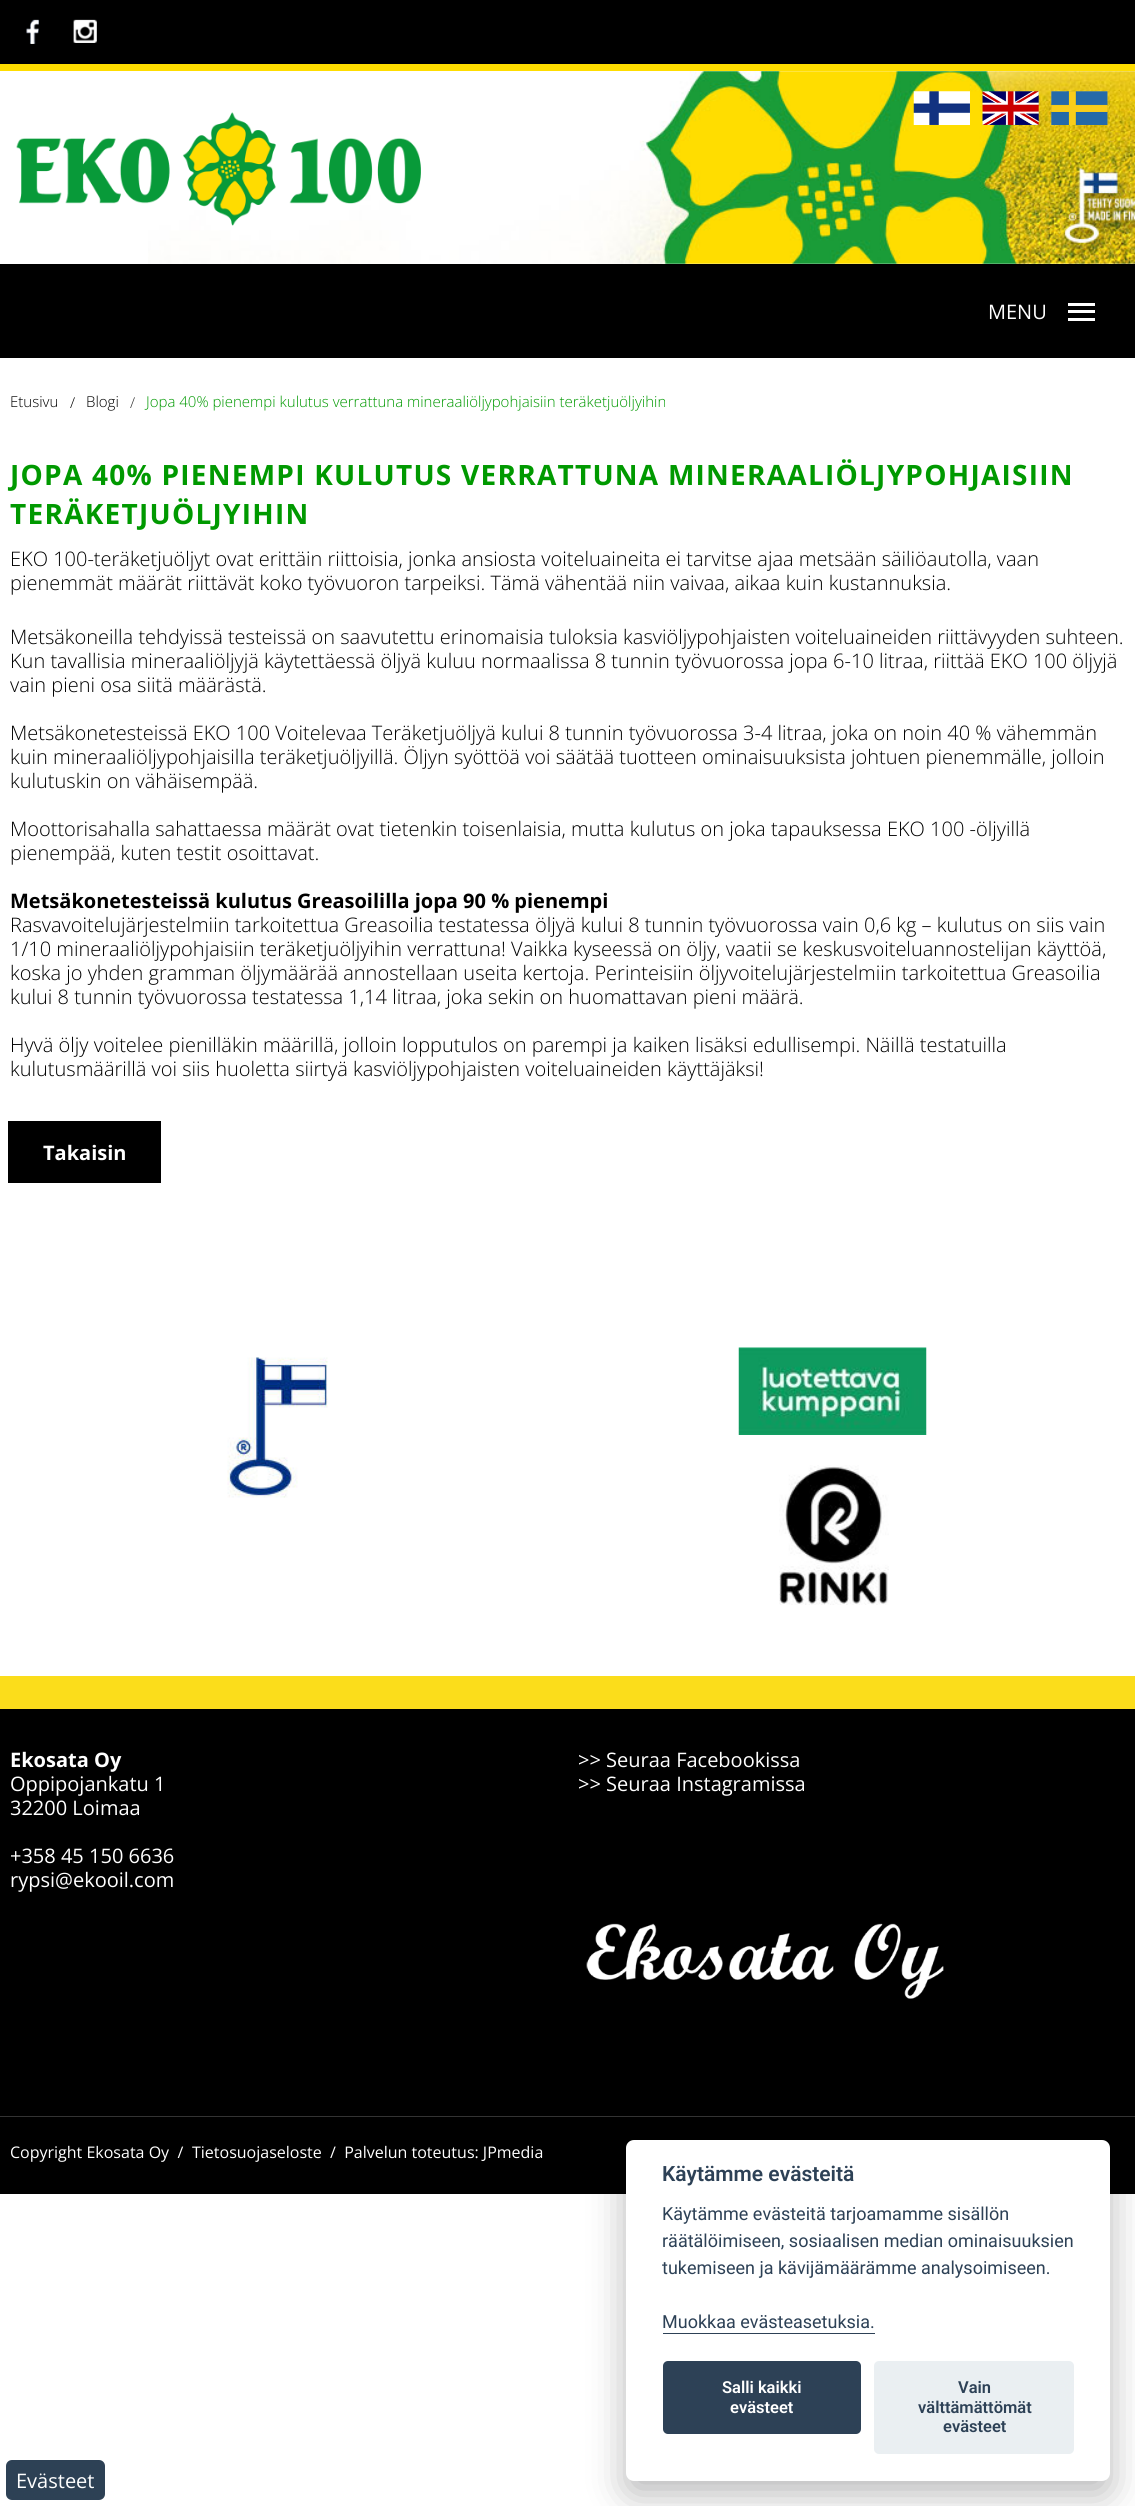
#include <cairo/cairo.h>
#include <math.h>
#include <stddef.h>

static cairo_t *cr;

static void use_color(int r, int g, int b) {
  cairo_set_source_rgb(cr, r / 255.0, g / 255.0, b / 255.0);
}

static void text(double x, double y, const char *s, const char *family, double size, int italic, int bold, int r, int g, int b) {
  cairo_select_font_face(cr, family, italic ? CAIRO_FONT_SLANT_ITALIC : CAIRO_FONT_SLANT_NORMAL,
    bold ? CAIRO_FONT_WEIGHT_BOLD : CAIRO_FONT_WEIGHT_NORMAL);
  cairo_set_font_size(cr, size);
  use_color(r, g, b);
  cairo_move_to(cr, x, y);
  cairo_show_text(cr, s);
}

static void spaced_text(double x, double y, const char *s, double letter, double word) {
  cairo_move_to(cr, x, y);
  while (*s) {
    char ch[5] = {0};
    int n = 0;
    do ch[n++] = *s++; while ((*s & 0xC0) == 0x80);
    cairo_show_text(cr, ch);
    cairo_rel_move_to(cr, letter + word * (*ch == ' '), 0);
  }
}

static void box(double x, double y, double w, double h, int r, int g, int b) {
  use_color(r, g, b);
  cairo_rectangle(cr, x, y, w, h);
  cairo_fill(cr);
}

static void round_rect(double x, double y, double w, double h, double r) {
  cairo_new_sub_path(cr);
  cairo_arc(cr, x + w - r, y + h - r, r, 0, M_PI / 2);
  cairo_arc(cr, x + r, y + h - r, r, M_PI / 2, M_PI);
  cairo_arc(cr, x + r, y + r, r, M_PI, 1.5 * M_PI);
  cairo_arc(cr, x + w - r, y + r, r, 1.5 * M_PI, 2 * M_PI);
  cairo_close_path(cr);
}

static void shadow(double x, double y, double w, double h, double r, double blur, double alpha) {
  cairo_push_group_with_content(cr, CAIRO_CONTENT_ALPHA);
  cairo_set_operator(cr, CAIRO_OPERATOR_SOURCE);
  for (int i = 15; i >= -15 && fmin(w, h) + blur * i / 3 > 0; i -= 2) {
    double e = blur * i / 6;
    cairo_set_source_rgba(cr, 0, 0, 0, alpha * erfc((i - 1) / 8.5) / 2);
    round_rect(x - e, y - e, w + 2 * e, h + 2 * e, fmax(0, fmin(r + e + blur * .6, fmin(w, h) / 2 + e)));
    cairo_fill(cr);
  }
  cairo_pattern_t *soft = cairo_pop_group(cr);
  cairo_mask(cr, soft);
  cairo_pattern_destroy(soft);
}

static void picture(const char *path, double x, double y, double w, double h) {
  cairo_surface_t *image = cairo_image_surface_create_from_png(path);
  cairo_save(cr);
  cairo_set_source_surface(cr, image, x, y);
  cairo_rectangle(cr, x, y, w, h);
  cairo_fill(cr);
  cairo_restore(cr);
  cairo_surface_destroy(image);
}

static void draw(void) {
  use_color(255, 255, 255);
  cairo_paint(cr);
  box(0, 0, 1135, 64, 0, 0, 0);
  box(0, 64, 1135, 7, 255, 221, 0);
  picture("img_01.png", 26, 19, 13, 25);
  picture("img_02.png", 73, 19, 24, 24);
  picture("img_03.png", 148, 71, 987, 193);
  picture("img_04.png", 913, 91, 57, 34);
  picture("img_05.png", 982, 91, 57, 34);
  picture("img_06.png", 1051, 91, 57, 34);
  picture("img_07.png", 16, 112, 405, 114);
  box(0, 264, 1135, 94, 0, 0, 0);
  box(1068, 318, 27, 3, 255, 255, 255);
  box(1068, 310, 27, 3, 255, 255, 255);
  box(1068, 303, 27, 3, 255, 255, 255);
  box(8, 1121, 153, 62, 0, 0, 0);
  picture("img_08.png", 227, 1357, 101, 141);
  picture("img_09.png", 738, 1347, 189, 88);
  picture("img_10.png", 779, 1465, 110, 140);
  box(0, 1676, 1135, 33, 251, 221, 27);
  box(0, 1709, 1135, 485, 0, 0, 0);
  picture("img_11.png", 586, 1923, 358, 76);
  box(0, 2116, 1135, 1, 51, 51, 51);
  use_color(2, 2, 3);
  shadow(626, 2153, 484, 341, 8, 19, 0.28);
  use_color(255, 255, 255);
  round_rect(626, 2140, 484, 341, 8);
  cairo_fill(cr);
  box(663, 2333, 212, 1, 45, 65, 86);
  round_rect(663, 2361, 198, 73, 5);
  cairo_fill(cr);
  use_color(234, 239, 242);
  round_rect(874, 2361, 200, 93, 5);
  cairo_fill(cr);
  use_color(45, 65, 85);
  round_rect(6, 2460, 99, 40, 6);
  cairo_fill(cr);
  text(988, 319, "MENU", "Open Sans", 20, 0, 0, 255, 255, 255);
  text(10, 407, "Etusivu", "Open Sans Light", 15, 0, 0, 0, 0, 0);
  text(70, 408, "/", "Open Sans Light", 15, 0, 0, 0, 0, 0);
  text(86, 407, "Blogi", "Open Sans Light", 15, 0, 0, 0, 0, 0);
  text(130, 408, "/", "Open Sans Light", 15, 0, 0, 51, 51, 51);
  text(146, 407, "Jopa 40% pienempi kulutus verrattuna mineraaliöljypohjaisiin teräketjuöljyihin", "Open Sans Light", 15, 0, 0, 0, 153, 0);
  cairo_select_font_face(cr, "Open Sans", CAIRO_FONT_SLANT_NORMAL, CAIRO_FONT_WEIGHT_BOLD);
  cairo_set_font_size(cr, 28);
  spaced_text(10, 485, "JOPA 40% PIENEMPI KULUTUS VERRATTUNA MINERAALIÖLJYPOHJAISIIN", 1.25, 0);
  spaced_text(10, 524, "TERÄKETJUÖLJYIHIN", 1.25, 0);
  text(10, 566, "EKO 100-teräketjuöljyt ovat erittäin riittoisia, jonka ansiosta voiteluaineita ei tarvitse ajaa metsään säiliöautolla, vaan", "Open Sans Light", 20, 0, 0, 0, 0, 0);
  text(10, 590, "pienemmät määrät riittävät koko työvuoron tarpeiksi. Tämä vähentää niin vaivaa, aikaa kuin kustannuksia.", "Open Sans Light", 20, 0, 0, 0, 0, 0);
  text(10, 644, "Metsäkoneilla tehdyissä testeissä on saavutettu erinomaisia tuloksia kasviöljypohjaisten voiteluaineiden riittävyyden suhteen.", "Open Sans Light", 20, 0, 0, 0, 0, 0);
  text(10, 668, "Kun tavallisia mineraaliöljyjä käytettäessä öljyä kuluu normaalissa 8 tunnin työvuorossa jopa 6-10 litraa, riittää EKO 100 öljyjä", "Open Sans Light", 20, 0, 0, 0, 0, 0);
  text(10, 692, "vain pieni osa siitä määrästä.", "Open Sans Light", 20, 0, 0, 0, 0, 0);
  text(10, 740, "Metsäkonetesteissä EKO 100 Voitelevaa Teräketjuöljyä kului 8 tunnin työvuorossa 3-4 litraa, joka on noin 40 % vähemmän", "Open Sans Light", 20, 0, 0, 0, 0, 0);
  text(10, 764, "kuin mineraaliöljypohjaisilla teräketjuöljyillä. Öljyn syöttöä voi säätää tuotteen ominaisuuksista johtuen pienemmälle, jolloin", "Open Sans Light", 20, 0, 0, 0, 0, 0);
  text(10, 788, "kulutuskin on vähäisempää.", "Open Sans Light", 20, 0, 0, 0, 0, 0);
  text(10, 836, "Moottorisahalla sahattaessa määrät ovat tietenkin toisenlaisia, mutta kulutus on joka tapauksessa EKO 100 -öljyillä", "Open Sans Light", 20, 0, 0, 0, 0, 0);
  text(10, 860, "pienempää, kuten testit osoittavat.", "Open Sans Light", 20, 0, 0, 0, 0, 0);
  text(10, 908, "Metsäkonetesteissä kulutus Greasoililla jopa 90 % pienempi", "Open Sans", 20, 0, 1, 0, 0, 0);
  text(10, 932, "Rasvavoitelujärjestelmiin tarkoitettua Greasoilia testatessa öljyä kului 8 tunnin työvuorossa vain 0,6 kg – kulutus on siis vain", "Open Sans Light", 20, 0, 0, 0, 0, 0);
  text(10, 956, "1/10 mineraaliöljypohjaisiin teräketjuöljyihin verrattuna! Vaikka kyseessä on öljy, vaatii se keskusvoiteluannostelijan käyttöä,", "Open Sans Light", 20, 0, 0, 0, 0, 0);
  text(10, 980, "koska jo yhden gramman öljymäärää annostellaan useita kertoja. Perinteisiin öljyvoitelujärjestelmiin tarkoitettua Greasoilia", "Open Sans Light", 20, 0, 0, 0, 0, 0);
  text(10, 1004, "kului 8 tunnin työvuorossa testatessa 1,14 litraa, joka sekin on huomattavan pieni määrä.", "Open Sans Light", 20, 0, 0, 0, 0, 0);
  text(10, 1052, "Hyvä öljy voitelee pienilläkin määrillä, jolloin lopputulos on parempi ja kaiken lisäksi edullisempi. Näillä testatuilla", "Open Sans Light", 20, 0, 0, 0, 0, 0);
  text(10, 1076, "kulutusmäärillä voi siis huoletta siirtyä kasviöljypohjaisten voiteluaineiden käyttäjäksi!", "Open Sans Light", 20, 0, 0, 0, 0, 0);
  text(43, 1160, "Takaisin", "Open Sans", 20, 0, 1, 255, 255, 255);
  text(10, 1767, "Ekosata Oy", "Open Sans", 20, 0, 1, 255, 255, 255);
  text(10, 1791, "Oppipojankatu 1", "Open Sans", 20, 0, 0, 255, 255, 255);
  text(10, 1815, "32200 Loimaa", "Open Sans", 20, 0, 0, 255, 255, 255);
  text(10, 1863, "+358 45 150 6636", "Open Sans", 20, 0, 0, 255, 255, 255);
  text(10, 1887, "rypsi@ekooil.com", "Open Sans", 20, 0, 0, 255, 255, 255);
  text(578, 1767, ">> Seuraa Facebookissa", "Open Sans", 20, 0, 0, 255, 255, 255);
  text(578, 1791, ">> Seuraa Instagramissa", "Open Sans", 20, 0, 0, 255, 255, 255);
  text(10, 2158, "Copyright Ekosata Oy  /", "Open Sans", 16, 0, 0, 255, 255, 255);
  text(192, 2158, "Tietosuojaseloste", "Open Sans", 16, 0, 0, 255, 255, 255);
  text(330, 2158, "/  Palvelun toteutus: JPmedia", "Open Sans", 16, 0, 0, 255, 255, 255);
  text(662, 2181, "Käytämme evästeitä", "Roboto SemiBold", 21, 0, 0, 45, 65, 86);
  text(662, 2220, "Käytämme evästeitä tarjoamamme sisällön", "Roboto", 18, 0, 0, 45, 65, 86);
  text(662, 2247, "räätälöimiseen, sosiaalisen median ominaisuuksien", "Roboto", 18, 0, 0, 45, 65, 86);
  text(662, 2274, "tukemiseen ja kävijämäärämme analysoimiseen.", "Roboto", 18, 0, 0, 45, 65, 86);
  text(662, 2328, "Muokkaa evästeasetuksia.", "Roboto", 18, 0, 0, 45, 65, 86);
  text(722, 2393, "Salli kaikki", "Roboto SemiBold", 16.5, 0, 0, 255, 255, 255);
  text(730, 2413, "evästeet", "Roboto SemiBold", 16.5, 0, 0, 255, 255, 255);
  text(958, 2393, "Vain", "Roboto SemiBold", 16.5, 0, 0, 45, 65, 86);
  text(918, 2413, "välttämättömät", "Roboto SemiBold", 16.5, 0, 0, 45, 65, 86);
  text(943, 2432, "evästeet", "Roboto SemiBold", 16.5, 0, 0, 45, 65, 86);
  text(16, 2488, "Evästeet", "Open Sans", 20, 0, 0, 255, 255, 255);
}

int main(void) {
  cairo_surface_t *surface = cairo_image_surface_create(CAIRO_FORMAT_RGB24, 1135, 2506);
  cr = cairo_create(surface);
  cairo_font_options_t *options = cairo_font_options_create();
  cairo_font_options_set_hint_metrics(options, CAIRO_HINT_METRICS_OFF);
  cairo_font_options_set_hint_style(options, CAIRO_HINT_STYLE_NONE);
  cairo_set_font_options(cr, options);
  cairo_set_miter_limit(cr, 4);
  draw();
  cairo_surface_write_to_png(surface, "out.png");
  cairo_font_options_destroy(options);
  cairo_destroy(cr);
  cairo_surface_destroy(surface);
  return 0;
}
